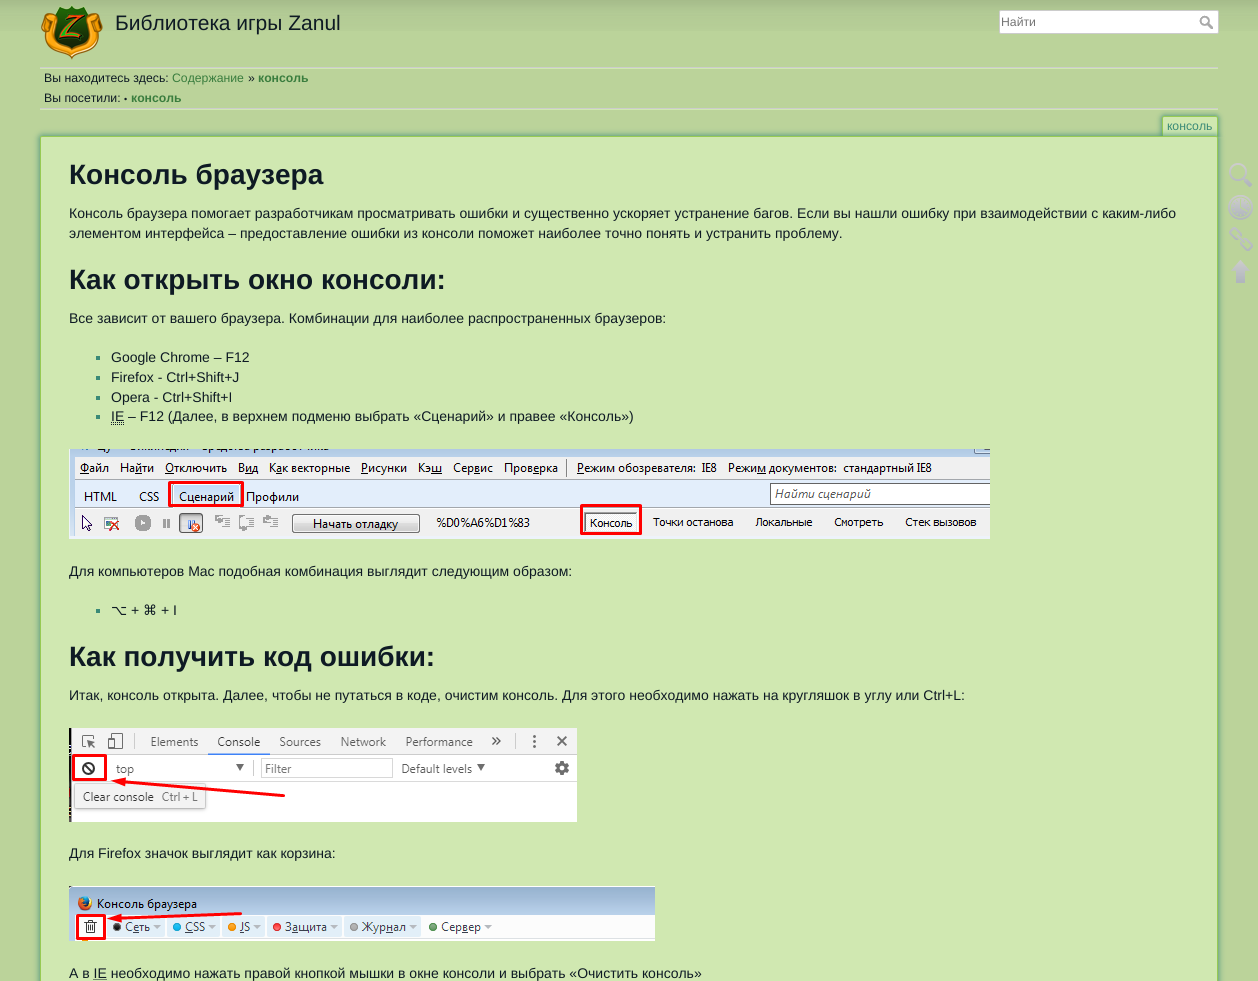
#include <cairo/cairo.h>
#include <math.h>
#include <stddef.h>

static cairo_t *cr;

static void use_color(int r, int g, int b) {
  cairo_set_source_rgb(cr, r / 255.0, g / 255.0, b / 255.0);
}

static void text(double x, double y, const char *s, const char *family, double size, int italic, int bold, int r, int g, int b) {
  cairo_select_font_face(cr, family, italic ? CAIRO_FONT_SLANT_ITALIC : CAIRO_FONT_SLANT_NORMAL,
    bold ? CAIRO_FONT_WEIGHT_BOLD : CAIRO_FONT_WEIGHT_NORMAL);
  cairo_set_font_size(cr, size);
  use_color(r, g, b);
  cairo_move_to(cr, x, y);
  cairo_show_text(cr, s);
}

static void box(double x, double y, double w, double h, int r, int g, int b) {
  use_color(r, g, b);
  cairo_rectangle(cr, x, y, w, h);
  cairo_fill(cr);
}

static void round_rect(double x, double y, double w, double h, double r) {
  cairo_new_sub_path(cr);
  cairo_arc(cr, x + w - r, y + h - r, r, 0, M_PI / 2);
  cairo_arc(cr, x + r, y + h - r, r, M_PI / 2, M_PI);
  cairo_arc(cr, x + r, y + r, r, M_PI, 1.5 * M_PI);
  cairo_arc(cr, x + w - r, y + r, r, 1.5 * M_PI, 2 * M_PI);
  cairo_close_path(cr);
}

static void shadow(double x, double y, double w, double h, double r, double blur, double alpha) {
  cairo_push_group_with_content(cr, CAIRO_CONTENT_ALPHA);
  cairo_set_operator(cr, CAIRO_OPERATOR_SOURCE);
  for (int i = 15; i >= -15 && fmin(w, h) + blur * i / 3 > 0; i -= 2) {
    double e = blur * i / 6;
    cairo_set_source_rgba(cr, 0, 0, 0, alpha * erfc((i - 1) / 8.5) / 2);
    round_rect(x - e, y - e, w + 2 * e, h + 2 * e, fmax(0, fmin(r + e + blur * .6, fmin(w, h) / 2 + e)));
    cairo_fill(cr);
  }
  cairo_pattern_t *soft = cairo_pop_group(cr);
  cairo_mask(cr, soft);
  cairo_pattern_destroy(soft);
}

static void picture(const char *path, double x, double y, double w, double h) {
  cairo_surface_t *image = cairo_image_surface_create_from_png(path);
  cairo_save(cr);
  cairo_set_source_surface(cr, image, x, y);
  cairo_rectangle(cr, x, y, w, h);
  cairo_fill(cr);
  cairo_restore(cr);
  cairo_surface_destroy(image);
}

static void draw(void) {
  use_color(187, 211, 154);
  cairo_paint(cr);
  picture("img_01.png", 0, 0, 1258, 31);
  picture("img_02.png", 41, 4, 62, 56);
  use_color(255, 255, 255);
  round_rect(999.5, 10.5, 219, 23, 1.5);
  cairo_fill_preserve(cr);
  use_color(204, 204, 204);
  cairo_set_line_width(cr, 1);
  cairo_stroke(cr);
  picture("img_03.png", 1199, 15, 14, 14);
  box(40, 67, 1178, 1, 204, 204, 204);
  box(40, 109, 1178, 1, 208, 232, 177);
  box(40, 68, 1178, 1, 208, 232, 177);
  box(40, 108, 1178, 1, 204, 204, 204);
  cairo_save(cr);
  cairo_rectangle(cr, 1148, 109, 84, 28);
  cairo_clip(cr);
  use_color(58, 138, 119);
  shadow(1162, 116, 56, 21, 2, 3, 1);
  cairo_restore(cr);
  use_color(208, 232, 177);
  cairo_new_path(cr);
  cairo_move_to(cr, 1164, 117);
  cairo_line_to(cr, 1216, 117);
  cairo_curve_to(cr, 1216.5, 117, 1217, 117.5, 1217, 118);
  cairo_line_to(cr, 1217, 137);
  cairo_line_to(cr, 1163, 137);
  cairo_line_to(cr, 1163, 118);
  cairo_curve_to(cr, 1163, 117.5, 1163.5, 117, 1164, 117);
  cairo_close_path(cr);
  cairo_fill(cr);
  box(1163, 116, 54, 1, 151, 202, 83);
  box(1217, 117, 1, 20, 151, 202, 83);
  box(1162, 117, 1, 20, 151, 202, 83);
  use_color(58, 138, 119);
  shadow(40, 136, 1178, 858, 2, 3.5, 1);
  use_color(208, 232, 177);
  round_rect(40.5, 136.5, 1177, 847, 1.5);
  cairo_fill_preserve(cr);
  use_color(151, 202, 83);
  cairo_stroke(cr);
  box(96, 356, 4, 4, 58, 138, 119);
  box(96, 376, 4, 4, 58, 138, 119);
  box(96, 396, 4, 4, 58, 138, 119);
  box(96, 415, 4, 4, 58, 138, 119);
  cairo_new_path(cr);
  cairo_move_to(cr, 111, 424.5);
  cairo_line_to(cr, 124, 424.5);
  cairo_move_to(cr, 111, 422.5);
  cairo_line_to(cr, 124, 422.5);
  use_color(14, 26, 36);
  cairo_set_dash(cr, (double[]){1, 1}, 2, 0);
  cairo_stroke(cr);
  picture("img_04.png", 69, 449, 921, 90);
  box(96, 609, 4, 4, 58, 138, 119);
  picture("img_05.png", 69, 728, 508, 94);
  picture("img_06.png", 69, 886, 586, 55);
  cairo_new_path(cr);
  cairo_move_to(cr, 93.5, 979.5);
  cairo_line_to(cr, 107, 979.5);
  use_color(14, 26, 36);
  cairo_stroke(cr);
  picture("img_07.png", 1229, 163, 24, 24);
  picture("img_08.png", 1228, 195, 25, 25);
  picture("img_09.png", 1229, 227, 24, 24);
  picture("img_10.png", 1231, 260, 19, 23);
  text(115, 30, "Библиотека игры Zanul", "Liberation Sans", 21, 0, 0, 14, 26, 36);
  text(1001, 26, "Найти", "Liberation Sans", 12.25, 0, 0, 117, 117, 117);
  text(44, 82, "Вы находитесь здесь:", "Liberation Sans", 12.25, 0, 0, 14, 26, 36);
  text(172, 82, "Содержание", "Liberation Sans", 12.25, 0, 0, 58, 125, 62);
  text(248, 82, "»", "Liberation Sans", 12.25, 0, 0, 14, 26, 36);
  text(258, 82, "консоль", "Liberation Sans", 12.25, 0, 1, 58, 125, 62);
  text(44, 102, "Вы посетили:", "Liberation Sans", 12.25, 0, 0, 14, 26, 36);
  text(124, 102, "•", "Liberation Sans", 9, 0, 0, 14, 26, 36);
  text(131, 102, "консоль", "Liberation Sans", 12.25, 0, 1, 58, 125, 62);
  text(1167, 130, "консоль", "Liberation Sans", 12.25, 0, 0, 58, 138, 119);
  text(69, 184, "Консоль браузера", "Liberation Sans", 28, 0, 1, 14, 26, 36);
  text(69, 218, "Консоль браузера помогает разработчикам просматривать ошибки и существенно ускоряет устранение багов. Если вы нашли ошибку при взаимодействии с каким-либо", "Liberation Sans", 14, 0, 0, 14, 26, 36);
  text(69, 238, "элементом интерфейса – предоставление ошибки из консоли поможет наиболее точно понять и устранить проблему.", "Liberation Sans", 14, 0, 0, 14, 26, 36);
  text(69, 289, "Как открыть окно консоли:", "Liberation Sans", 28, 0, 1, 14, 26, 36);
  text(69, 323, "Все зависит от вашего браузера. Комбинации для наиболее распространенных браузеров:", "Liberation Sans", 14, 0, 0, 14, 26, 36);
  text(111, 362, "Google Chrome – F12", "Liberation Sans", 14, 0, 0, 14, 26, 36);
  text(111, 382, "Firefox - Ctrl+Shift+J", "Liberation Sans", 14, 0, 0, 14, 26, 36);
  text(111, 402, "Opera - Ctrl+Shift+I", "Liberation Sans", 14, 0, 0, 14, 26, 36);
  text(111, 421, "IE – F12 (Далее, в верхнем подменю выбрать «Сценарий» и правее «Консоль»)", "Liberation Sans", 14, 0, 0, 14, 26, 36);
  text(69, 576, "Для компьютеров Mac подобная комбинация выглядит следующим образом:", "Liberation Sans", 14, 0, 0, 14, 26, 36);
  text(111, 615, "⌥", "DejaVu Sans", 14, 0, 0, 14, 26, 36);
  text(131, 615, "+", "Liberation Sans", 14, 0, 0, 14, 26, 36);
  text(143, 615, "⌘", "DejaVu Sans", 14, 0, 0, 14, 26, 36);
  text(161, 615, "+ I", "Liberation Sans", 14, 0, 0, 14, 26, 36);
  text(69, 666, "Как получить код ошибки:", "Liberation Sans", 28, 0, 1, 14, 26, 36);
  text(69, 700, "Итак, консоль открыта. Далее, чтобы не путаться в коде, очистим консоль. Для этого необходимо нажать на кругляшок в углу или Ctrl+L:", "Liberation Sans", 14, 0, 0, 14, 26, 36);
  text(69, 858, "Для Firefox значок выглядит как корзина:", "Liberation Sans", 14, 0, 0, 14, 26, 36);
  text(69, 978, "А в IE необходимо нажать правой кнопкой мышки в окне консоли и выбрать «Очистить консоль»", "Liberation Sans", 14, 0, 0, 14, 26, 36);
}

int main(void) {
  cairo_surface_t *surface = cairo_image_surface_create(CAIRO_FORMAT_RGB24, 1258, 981);
  cr = cairo_create(surface);
  cairo_font_options_t *options = cairo_font_options_create();
  cairo_font_options_set_hint_metrics(options, CAIRO_HINT_METRICS_OFF);
  cairo_font_options_set_hint_style(options, CAIRO_HINT_STYLE_NONE);
  cairo_set_font_options(cr, options);
  cairo_set_miter_limit(cr, 4);
  draw();
  cairo_surface_write_to_png(surface, "out.png");
  cairo_font_options_destroy(options);
  cairo_destroy(cr);
  cairo_surface_destroy(surface);
  return 0;
}
